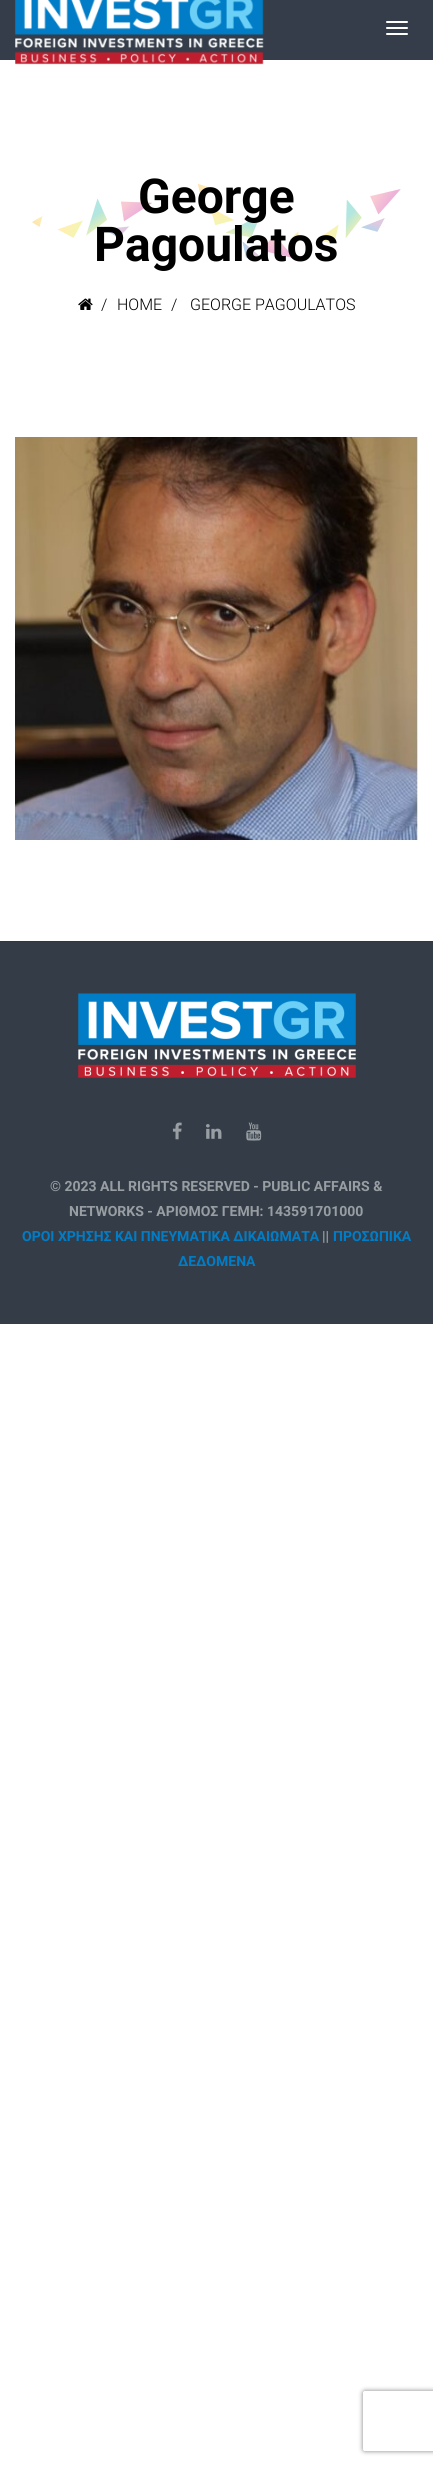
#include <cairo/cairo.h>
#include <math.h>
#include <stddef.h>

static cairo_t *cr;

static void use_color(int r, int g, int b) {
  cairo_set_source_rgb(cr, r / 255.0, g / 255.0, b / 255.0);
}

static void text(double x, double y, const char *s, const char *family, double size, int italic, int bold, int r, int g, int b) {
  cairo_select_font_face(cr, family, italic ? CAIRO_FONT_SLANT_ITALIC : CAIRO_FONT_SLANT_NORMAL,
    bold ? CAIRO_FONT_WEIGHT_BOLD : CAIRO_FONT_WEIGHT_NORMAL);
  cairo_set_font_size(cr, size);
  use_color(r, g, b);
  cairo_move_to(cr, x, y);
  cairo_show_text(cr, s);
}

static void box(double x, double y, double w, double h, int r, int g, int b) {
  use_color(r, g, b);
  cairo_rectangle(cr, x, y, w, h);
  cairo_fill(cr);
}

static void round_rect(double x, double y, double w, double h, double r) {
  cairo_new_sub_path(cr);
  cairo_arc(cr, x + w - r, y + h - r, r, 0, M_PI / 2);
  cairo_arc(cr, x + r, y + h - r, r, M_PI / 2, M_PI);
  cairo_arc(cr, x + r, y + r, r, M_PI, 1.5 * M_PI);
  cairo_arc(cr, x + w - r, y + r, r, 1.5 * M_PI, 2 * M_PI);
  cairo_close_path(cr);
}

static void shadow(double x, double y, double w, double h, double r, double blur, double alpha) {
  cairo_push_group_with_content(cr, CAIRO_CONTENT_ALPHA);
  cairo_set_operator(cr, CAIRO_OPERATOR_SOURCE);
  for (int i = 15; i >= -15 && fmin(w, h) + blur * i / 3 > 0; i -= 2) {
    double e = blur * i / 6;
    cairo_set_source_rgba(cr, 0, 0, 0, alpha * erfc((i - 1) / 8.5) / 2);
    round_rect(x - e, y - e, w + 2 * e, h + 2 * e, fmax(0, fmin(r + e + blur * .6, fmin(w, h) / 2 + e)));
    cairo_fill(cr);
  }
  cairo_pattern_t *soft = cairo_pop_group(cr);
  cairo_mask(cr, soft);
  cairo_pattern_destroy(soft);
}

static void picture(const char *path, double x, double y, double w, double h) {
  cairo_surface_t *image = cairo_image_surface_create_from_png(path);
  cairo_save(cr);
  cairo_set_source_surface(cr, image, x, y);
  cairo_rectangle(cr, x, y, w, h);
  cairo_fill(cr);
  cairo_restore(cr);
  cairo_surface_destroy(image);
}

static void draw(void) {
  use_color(255, 255, 255);
  cairo_paint(cr);
  box(0, 0, 433, 60, 52, 61, 73);
  picture("img_01.png", 15, 0, 249, 65);
  use_color(255, 255, 255);
  round_rect(386, 21, 22, 2, 1);
  cairo_fill(cr);
  round_rect(386, 27, 22, 2, 1);
  cairo_fill(cr);
  round_rect(386, 33, 22, 2, 1);
  cairo_fill(cr);
  picture("img_02.png", 32, 184, 369, 75);
  picture("img_03.png", 78, 298, 15, 12);
  picture("img_04.png", 15, 437, 403, 403);
  box(0, 942, 433, 382, 52, 61, 71);
  box(0, 941, 433, 1, 48, 56, 65);
  picture("img_05.png", 78, 993, 278, 85);
  picture("img_06.png", 172, 1122, 10, 18);
  picture("img_07.png", 206, 1124, 16, 15);
  picture("img_08.png", 246, 1122, 16, 19);
  cairo_save(cr);
  cairo_set_fill_rule(cr, CAIRO_FILL_RULE_EVEN_ODD);
  cairo_new_path(cr);
  cairo_move_to(cr, 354, 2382);
  cairo_line_to(cr, 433, 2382);
  cairo_line_to(cr, 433, 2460);
  cairo_line_to(cr, 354, 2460);
  cairo_close_path(cr);
  cairo_move_to(cr, 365, 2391);
  cairo_line_to(cr, 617, 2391);
  cairo_curve_to(cr, 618, 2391, 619, 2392, 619, 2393);
  cairo_line_to(cr, 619, 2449);
  cairo_curve_to(cr, 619, 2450, 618, 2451, 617, 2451);
  cairo_line_to(cr, 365, 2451);
  cairo_curve_to(cr, 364, 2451, 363, 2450, 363, 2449);
  cairo_line_to(cr, 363, 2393);
  cairo_curve_to(cr, 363, 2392, 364, 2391, 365, 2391);
  cairo_close_path(cr);
  cairo_clip(cr);
  use_color(128, 128, 128);
  shadow(363, 2391, 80, 60, 2, 2.5, 1);
  cairo_restore(cr);
  text(138, 213, "George", "Roboto", 48, 0, 1, 0, 0, 0);
  text(94, 261, "Pagoulatos", "Roboto", 48, 0, 1, 0, 0, 0);
  text(101, 310, "/", "Roboto Light", 16, 0, 0, 0, 0, 0);
  text(117, 310, "HOME", "Roboto Light", 16, 0, 0, 0, 0, 0);
  text(171, 310, "/", "Roboto Light", 16, 0, 0, 0, 0, 0);
  text(190, 310, "GEORGE PAGOULATOS", "Roboto Light", 16, 0, 0, 0, 0, 0);
  text(50, 1191, "© 2023 ALL RIGHTS RESERVED - PUBLIC AFFAIRS &", "Roboto", 14, 0, 1, 153, 158, 163);
  text(69, 1216, "NETWORKS - ΑΡΙΘΜΟΣ ΓΕΜΗ: 143591701000", "Roboto", 14, 0, 1, 153, 158, 163);
  text(22, 1241, "ΟΡΟΙ ΧΡΗΣΗΣ ΚΑΙ ΠΝΕΥΜΑΤΙΚΑ ΔΙΚΑΙΩΜΑΤΑ", "Roboto", 14, 0, 1, 1, 125, 199);
  text(322, 1241, "||", "Roboto", 14, 0, 1, 153, 158, 163);
  text(333, 1241, "ΠΡΟΣΩΠΙΚΑ", "Roboto", 14, 0, 1, 1, 125, 199);
  text(178, 1266, "ΔΕΔΟΜΕΝΑ", "Roboto", 14, 0, 1, 1, 125, 199);
}

int main(void) {
  cairo_surface_t *surface = cairo_image_surface_create(CAIRO_FORMAT_RGB24, 433, 2465);
  cr = cairo_create(surface);
  cairo_font_options_t *options = cairo_font_options_create();
  cairo_font_options_set_hint_metrics(options, CAIRO_HINT_METRICS_OFF);
  cairo_font_options_set_hint_style(options, CAIRO_HINT_STYLE_NONE);
  cairo_set_font_options(cr, options);
  cairo_set_miter_limit(cr, 4);
  draw();
  cairo_surface_write_to_png(surface, "out.png");
  cairo_font_options_destroy(options);
  cairo_destroy(cr);
  cairo_surface_destroy(surface);
  return 0;
}
